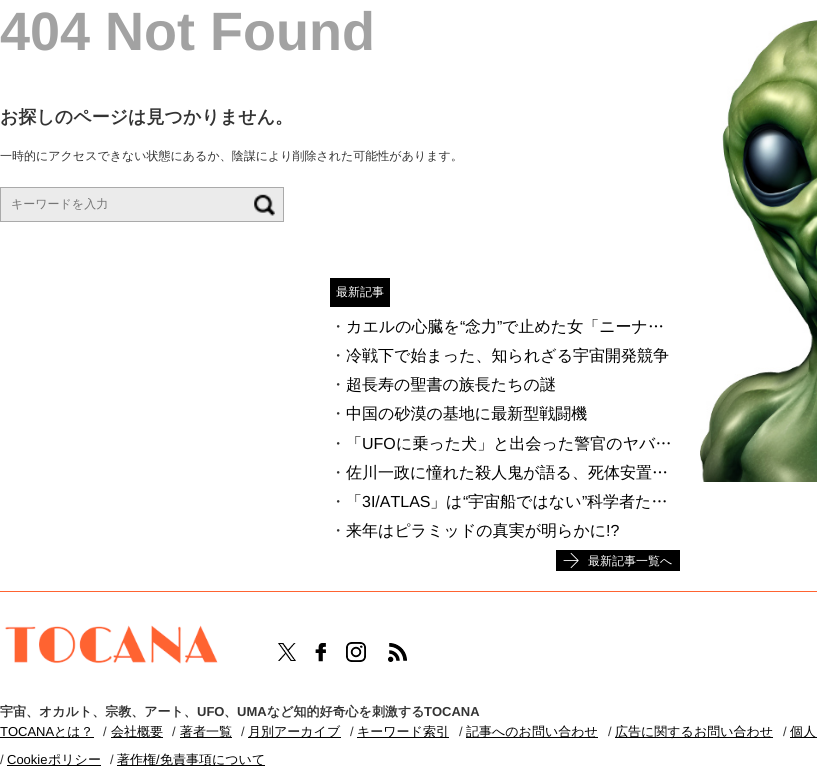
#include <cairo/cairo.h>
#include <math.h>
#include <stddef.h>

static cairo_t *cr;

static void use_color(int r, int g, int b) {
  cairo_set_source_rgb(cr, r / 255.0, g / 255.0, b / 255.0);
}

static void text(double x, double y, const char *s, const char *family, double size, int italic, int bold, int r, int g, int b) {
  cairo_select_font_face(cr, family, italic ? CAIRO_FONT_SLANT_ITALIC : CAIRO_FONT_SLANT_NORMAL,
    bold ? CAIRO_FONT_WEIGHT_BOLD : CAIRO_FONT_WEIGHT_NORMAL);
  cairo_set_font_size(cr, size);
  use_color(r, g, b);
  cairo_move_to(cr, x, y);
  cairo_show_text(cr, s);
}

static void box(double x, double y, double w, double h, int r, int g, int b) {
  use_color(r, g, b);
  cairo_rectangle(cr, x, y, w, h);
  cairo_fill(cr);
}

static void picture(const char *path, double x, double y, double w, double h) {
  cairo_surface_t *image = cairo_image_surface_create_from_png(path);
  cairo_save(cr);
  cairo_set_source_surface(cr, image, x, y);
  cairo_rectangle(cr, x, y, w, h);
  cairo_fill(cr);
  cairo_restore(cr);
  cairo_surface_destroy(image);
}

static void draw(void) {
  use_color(255, 255, 255);
  cairo_paint(cr);
  box(1, 188, 282, 33, 235, 235, 235);
  box(0, 187, 284, 1, 170, 170, 170);
  box(0, 221, 250, 1, 170, 170, 170);
  box(0, 187, 1, 35, 170, 170, 170);
  box(283, 187, 1, 35, 170, 170, 170);
  box(250, 221, 34, 1, 170, 170, 170);
  picture("img_01.png", 254, 194, 21, 22);
  box(330, 278, 60, 29, 0, 0, 0);
  box(556, 570, 124, 1, 0, 0, 0);
  box(588, 550, 92, 20, 0, 0, 0);
  picture("img_03.png", 700, 20, 117, 462);
  box(0, 591, 817, 1, 255, 99, 49);
  picture("img_04.png", 5, 625, 213, 39);
  picture("img_05.png", 278, 643, 18, 18);
  picture("img_06.png", 315, 643, 11, 19);
  picture("img_07.png", 346, 642, 20, 20);
  picture("img_08.png", 388, 643, 19, 19);
  box(0, 737, 94, 1, 0, 0, 0);
  box(111, 737, 52, 1, 0, 0, 0);
  box(180, 737, 52, 1, 0, 0, 0);
  box(248, 737, 93, 1, 0, 0, 0);
  box(357, 737, 92, 1, 0, 0, 0);
  box(466, 737, 132, 1, 0, 0, 0);
  box(615, 737, 158, 1, 0, 0, 0);
  box(790, 737, 27, 1, 0, 0, 0);
  box(7, 765, 94, 1, 0, 0, 0);
  box(117, 765, 148, 1, 0, 0, 0);
  text(0, 50, "404 Not Found", "Liberation Sans", 54, 0, 1, 162, 162, 162);
  text(0, 123, "お探しのページは見つかりません。", "WenQuanYi Zen Hei", 18, 0, 1, 51, 51, 51);
  text(0, 160, "一時的にアクセスできない状態にあるか、陰謀により削除された可能性があります。", "WenQuanYi Zen Hei Medium", 12, 0, 0, 51, 51, 51);
  text(11, 208, "キーワードを入力", "WenQuanYi Zen Hei Medium", 12, 0, 0, 117, 117, 117);
  text(336, 296, "最新記事", "WenQuanYi Zen Hei Medium", 12, 0, 0, 255, 255, 255);
  text(346, 332, "カエルの心臓を", "WenQuanYi Zen Hei Medium", 16, 0, 0, 0, 0, 0);
  text(460, 332, "“", "Liberation Sans", 16, 0, 0, 0, 0, 0);
  text(465, 332, "念力", "WenQuanYi Zen Hei Medium", 16, 0, 0, 0, 0, 0);
  text(497, 332, "”", "Liberation Sans", 16, 0, 0, 0, 0, 0);
  text(502, 332, "で止めた女「ニーナ…", "WenQuanYi Zen Hei Medium", 16, 0, 0, 0, 0, 0);
  text(330, 332, "・", "WenQuanYi Zen Hei Medium", 16, 0, 0, 51, 51, 51);
  text(330, 361, "・", "WenQuanYi Zen Hei Medium", 16, 0, 0, 51, 51, 51);
  text(346, 361, "冷戦下で始まった、知られざる宇宙開発競争", "WenQuanYi Zen Hei Medium", 16, 0, 0, 0, 0, 0);
  text(330, 390, "・", "WenQuanYi Zen Hei Medium", 16, 0, 0, 51, 51, 51);
  text(346, 390, "超長寿の聖書の族長たちの謎", "WenQuanYi Zen Hei Medium", 16, 0, 0, 0, 0, 0);
  text(330, 419, "・", "WenQuanYi Zen Hei Medium", 16, 0, 0, 51, 51, 51);
  text(346, 419, "中国の砂漠の基地に最新型戦闘機", "WenQuanYi Zen Hei Medium", 16, 0, 0, 0, 0, 0);
  text(330, 449, "・", "WenQuanYi Zen Hei Medium", 16, 0, 0, 51, 51, 51);
  text(346, 449, "「", "WenQuanYi Zen Hei Medium", 16, 0, 0, 0, 0, 0);
  text(362, 449, "UFO", "Liberation Sans", 16, 0, 0, 0, 0, 0);
  text(396, 449, "に乗った犬」と出会った警官のヤバ…", "WenQuanYi Zen Hei Medium", 16, 0, 0, 0, 0, 0);
  text(330, 478, "・", "WenQuanYi Zen Hei Medium", 16, 0, 0, 51, 51, 51);
  text(346, 478, "佐川一政に憧れた殺人鬼が語る、死体安置…", "WenQuanYi Zen Hei Medium", 16, 0, 0, 0, 0, 0);
  text(346, 507, "「", "WenQuanYi Zen Hei Medium", 16, 0, 0, 0, 0, 0);
  text(362, 507, "3I/ATLAS", "Liberation Sans", 16, 0, 0, 0, 0, 0);
  text(430, 507, "」は", "WenQuanYi Zen Hei Medium", 16, 0, 0, 0, 0, 0);
  text(463, 507, "“", "Liberation Sans", 16, 0, 0, 0, 0, 0);
  text(468, 507, "宇宙船ではない", "WenQuanYi Zen Hei Medium", 16, 0, 0, 0, 0, 0);
  text(582, 507, "”", "Liberation Sans", 16, 0, 0, 0, 0, 0);
  text(587, 507, "科学者た…", "WenQuanYi Zen Hei Medium", 16, 0, 0, 0, 0, 0);
  text(330, 507, "・", "WenQuanYi Zen Hei Medium", 16, 0, 0, 51, 51, 51);
  text(330, 536, "・", "WenQuanYi Zen Hei Medium", 16, 0, 0, 51, 51, 51);
  text(346, 536, "来年はピラミッドの真実が明らかに", "WenQuanYi Zen Hei Medium", 16, 0, 0, 0, 0, 0);
  text(606, 536, "!?", "Liberation Sans", 16, 0, 0, 0, 0, 0);
  text(588, 565, "最新記事一覧へ", "WenQuanYi Zen Hei Medium", 12, 0, 0, 255, 255, 255);
  picture("img_02.png", 556, 550, 32, 20);
  text(0, 716, "宇宙、オカルト、宗教、アート、", "WenQuanYi Zen Hei", 13, 0, 1, 51, 51, 51);
  text(197, 716, "UFO", "Liberation Sans", 13, 0, 1, 51, 51, 51);
  text(224, 716, "、", "WenQuanYi Zen Hei", 13, 0, 1, 51, 51, 51);
  text(237, 716, "UMA", "Liberation Sans", 13, 0, 1, 51, 51, 51);
  text(267, 716, "など知的好奇心を刺激する", "WenQuanYi Zen Hei", 13, 0, 1, 51, 51, 51);
  text(424, 716, "TOCANA", "Liberation Sans", 13, 0, 1, 51, 51, 51);
  text(0, 736, "TOCANA", "Liberation Sans", 13, 0, 0, 0, 0, 0);
  text(54, 736, "とは？", "WenQuanYi Zen Hei Medium", 13, 0, 0, 0, 0, 0);
  text(103, 736, "/", "Liberation Sans", 13, 0, 0, 51, 51, 51);
  text(111, 736, "会社概要", "WenQuanYi Zen Hei Medium", 13, 0, 0, 0, 0, 0);
  text(172, 736, "/", "Liberation Sans", 13, 0, 0, 51, 51, 51);
  text(180, 736, "著者一覧", "WenQuanYi Zen Hei Medium", 13, 0, 0, 0, 0, 0);
  text(241, 736, "/", "Liberation Sans", 13, 0, 0, 51, 51, 51);
  text(248, 736, "月別アーカイブ", "WenQuanYi Zen Hei Medium", 13, 0, 0, 0, 0, 0);
  text(350, 736, "/", "Liberation Sans", 13, 0, 0, 51, 51, 51);
  text(357, 736, "キーワード索引", "WenQuanYi Zen Hei Medium", 13, 0, 0, 0, 0, 0);
  text(459, 736, "/", "Liberation Sans", 13, 0, 0, 51, 51, 51);
  text(466, 736, "記事へのお問い合わせ", "WenQuanYi Zen Hei Medium", 13, 0, 0, 0, 0, 0);
  text(608, 736, "/", "Liberation Sans", 13, 0, 0, 51, 51, 51);
  text(615, 736, "広告に関するお問い合わせ", "WenQuanYi Zen Hei Medium", 13, 0, 0, 0, 0, 0);
  text(783, 736, "/", "Liberation Sans", 13, 0, 0, 51, 51, 51);
  text(790, 736, "個人", "WenQuanYi Zen Hei Medium", 13, 0, 0, 0, 0, 0);
  text(0, 764, "/", "Liberation Sans", 13, 0, 0, 51, 51, 51);
  text(7, 764, "Cookie", "Liberation Sans", 13, 0, 0, 0, 0, 0);
  text(48, 764, "ポリシー", "WenQuanYi Zen Hei Medium", 13, 0, 0, 0, 0, 0);
  text(110, 764, "/", "Liberation Sans", 13, 0, 0, 51, 51, 51);
  text(117, 764, "著作権", "WenQuanYi Zen Hei Medium", 13, 0, 0, 0, 0, 0);
  text(156, 764, "/", "Liberation Sans", 13, 0, 0, 0, 0, 0);
  text(160, 764, "免責事項について", "WenQuanYi Zen Hei Medium", 13, 0, 0, 0, 0, 0);
}

int main(void) {
  cairo_surface_t *surface = cairo_image_surface_create(CAIRO_FORMAT_RGB24, 817, 780);
  cr = cairo_create(surface);
  cairo_font_options_t *options = cairo_font_options_create();
  cairo_font_options_set_hint_metrics(options, CAIRO_HINT_METRICS_OFF);
  cairo_font_options_set_hint_style(options, CAIRO_HINT_STYLE_NONE);
  cairo_set_font_options(cr, options);
  cairo_set_miter_limit(cr, 4);
  draw();
  cairo_surface_write_to_png(surface, "out.png");
  cairo_font_options_destroy(options);
  cairo_destroy(cr);
  cairo_surface_destroy(surface);
  return 0;
}
